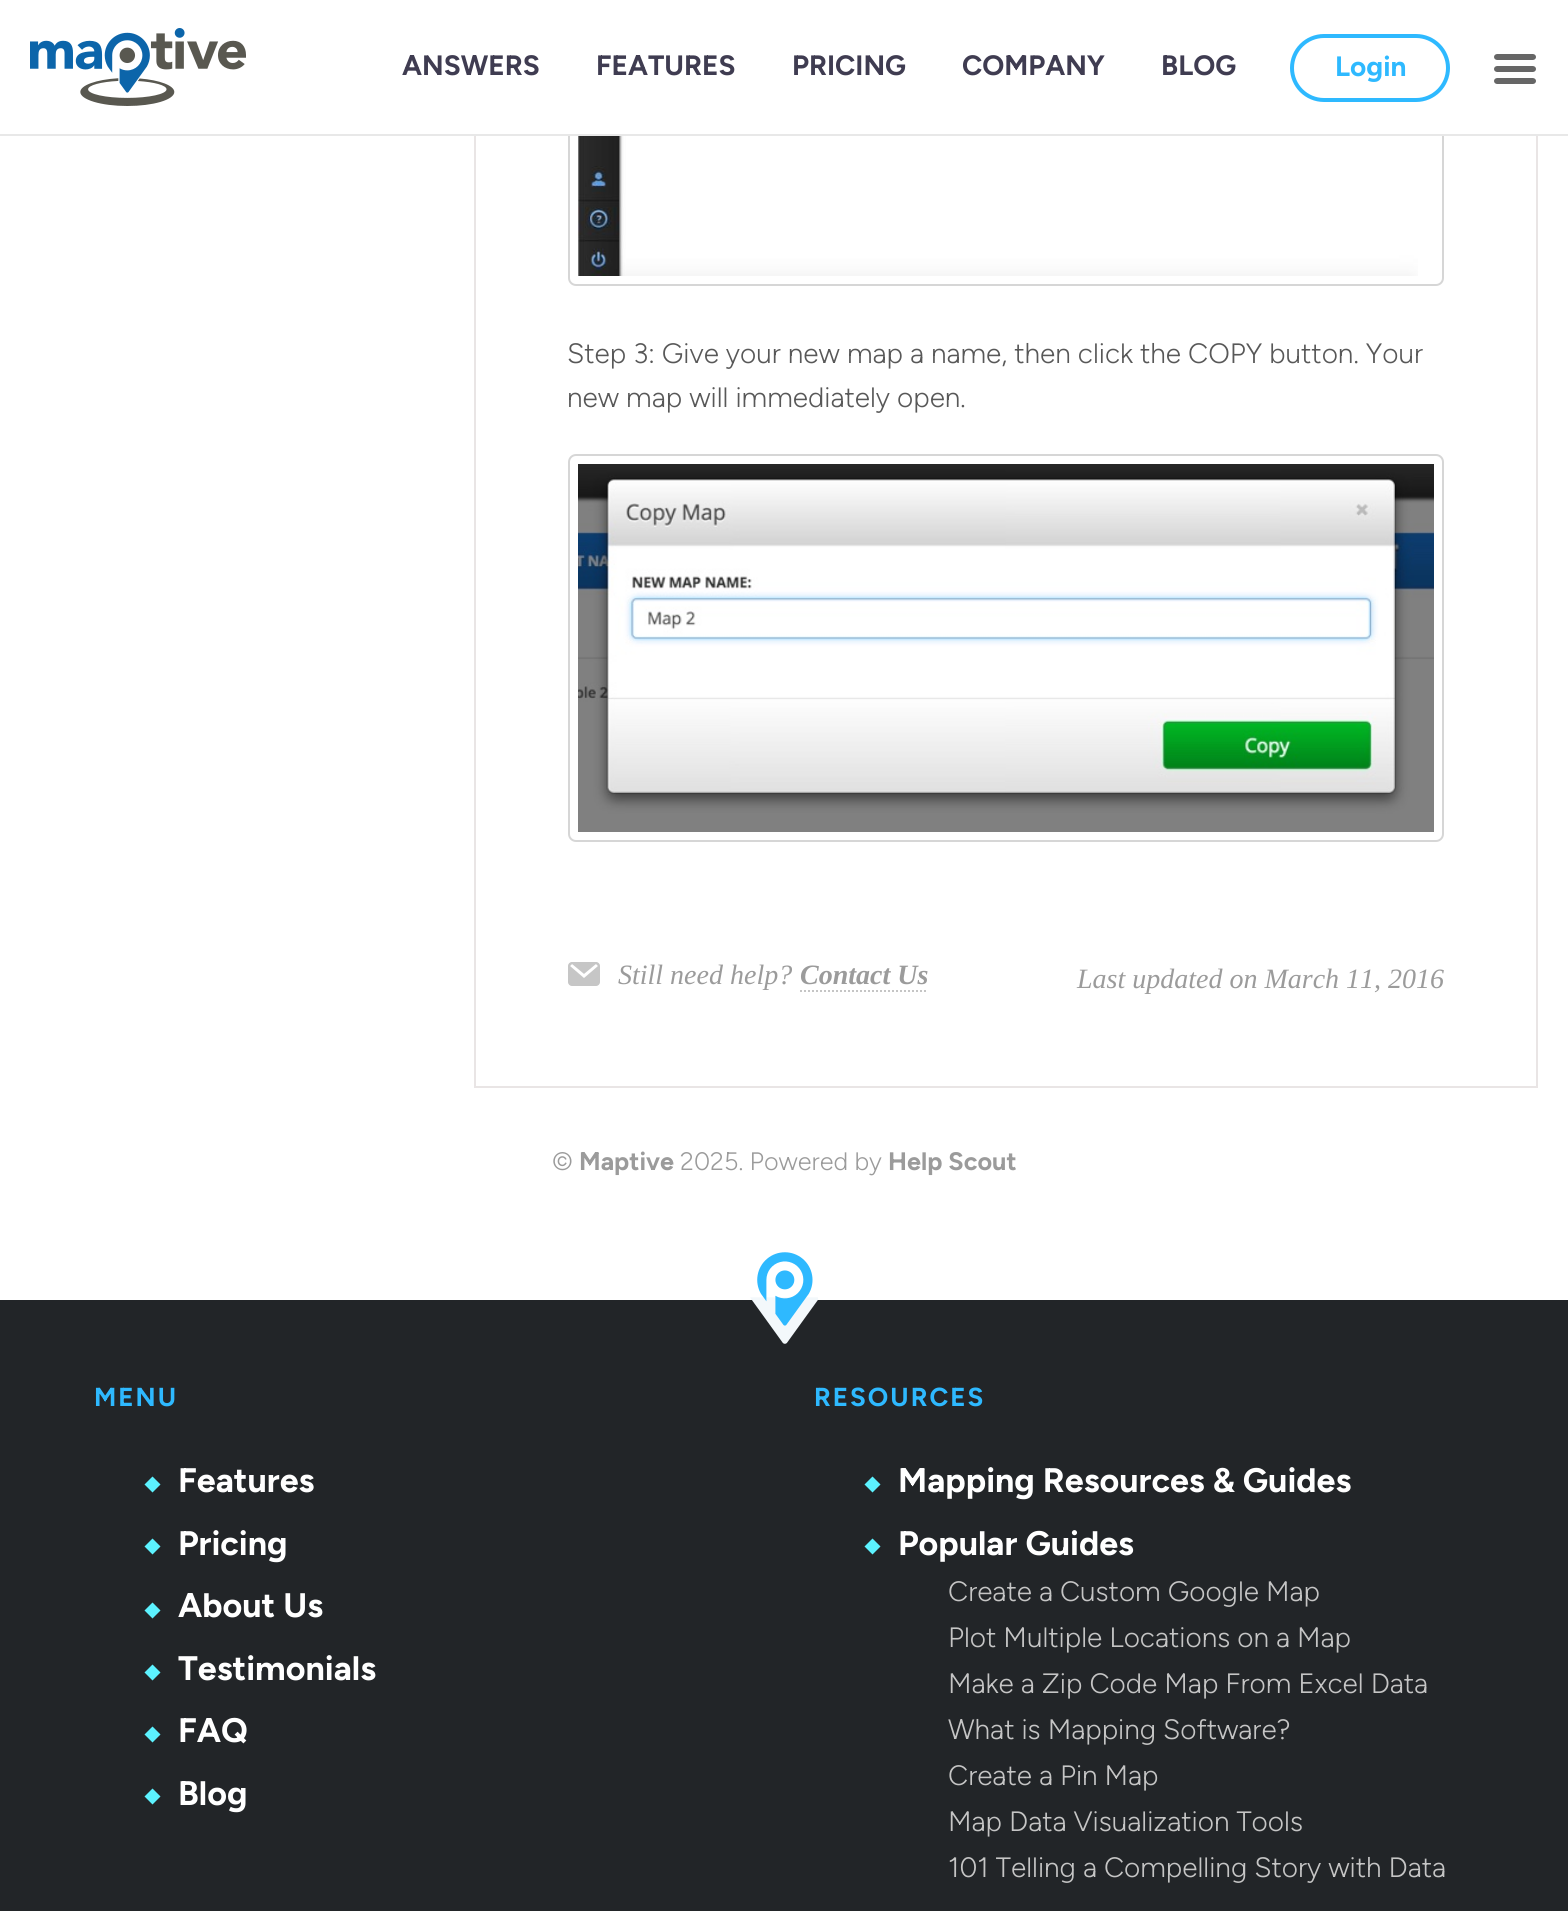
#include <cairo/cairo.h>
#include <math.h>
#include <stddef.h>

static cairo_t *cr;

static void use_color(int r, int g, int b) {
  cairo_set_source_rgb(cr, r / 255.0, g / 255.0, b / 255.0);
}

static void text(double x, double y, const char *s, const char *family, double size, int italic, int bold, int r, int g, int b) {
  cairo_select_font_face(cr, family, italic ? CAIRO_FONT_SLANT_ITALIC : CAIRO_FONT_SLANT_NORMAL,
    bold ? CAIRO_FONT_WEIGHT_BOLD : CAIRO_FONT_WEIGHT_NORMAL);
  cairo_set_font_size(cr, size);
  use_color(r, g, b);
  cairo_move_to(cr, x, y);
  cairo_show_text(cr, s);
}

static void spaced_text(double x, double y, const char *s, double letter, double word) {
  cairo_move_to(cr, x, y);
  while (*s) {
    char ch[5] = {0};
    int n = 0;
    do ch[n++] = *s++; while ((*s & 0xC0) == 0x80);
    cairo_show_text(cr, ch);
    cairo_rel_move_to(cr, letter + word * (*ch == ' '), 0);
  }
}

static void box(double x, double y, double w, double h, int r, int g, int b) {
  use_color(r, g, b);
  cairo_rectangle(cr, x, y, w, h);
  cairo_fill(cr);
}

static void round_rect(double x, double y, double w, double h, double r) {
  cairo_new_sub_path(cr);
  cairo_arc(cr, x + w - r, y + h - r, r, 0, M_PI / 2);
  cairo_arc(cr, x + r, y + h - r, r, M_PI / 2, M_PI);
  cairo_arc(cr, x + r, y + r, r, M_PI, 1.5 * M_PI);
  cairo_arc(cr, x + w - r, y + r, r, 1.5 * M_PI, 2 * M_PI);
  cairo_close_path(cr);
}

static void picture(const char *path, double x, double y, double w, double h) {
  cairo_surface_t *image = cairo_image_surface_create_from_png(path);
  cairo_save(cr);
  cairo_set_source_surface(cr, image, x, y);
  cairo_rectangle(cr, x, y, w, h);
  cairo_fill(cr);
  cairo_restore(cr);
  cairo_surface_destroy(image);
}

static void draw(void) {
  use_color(255, 255, 255);
  cairo_paint(cr);
  cairo_rectangle(cr, 475, -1, 1062, 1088);
  use_color(233, 229, 229);
  cairo_stroke(cr);
  round_rect(569, -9, 874, 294, 7);
  use_color(214, 214, 214);
  cairo_stroke(cr);
  box(474, 0, 1064, 134, 255, 255, 255);
  box(0, 134, 1568, 2, 232, 232, 232);
  picture("img_01.png", 30, 28, 216, 78);
  round_rect(1292, 36, 156, 64, 32);
  use_color(46, 185, 255);
  cairo_set_line_width(cr, 4);
  cairo_stroke(cr);
  picture("img_02.png", 1494, 54, 42, 30);
  picture("img_03.png", 578, 136, 840, 140);
  round_rect(569, 455, 874, 386, 7);
  use_color(214, 214, 214);
  cairo_set_line_width(cr, 2);
  cairo_stroke(cr);
  picture("img_04.png", 578, 464, 856, 368);
  picture("img_05.png", 568, 962, 32, 24);
  cairo_new_path(cr);
  cairo_move_to(cr, 800, 991);
  cairo_line_to(cr, 928, 991);
  use_color(197, 197, 197);
  cairo_set_dash(cr, (double[]){2, 2}, 2, 0);
  cairo_stroke(cr);
  box(0, 1300, 1568, 611, 34, 37, 40);
  picture("img_06.png", 750, 1252, 68, 92);
  use_color(92, 242, 255);
  cairo_new_path(cr);
  cairo_move_to(cr, 152.5, 1476.5);
  cairo_line_to(cr, 160.5, 1484.5);
  cairo_line_to(cr, 152.5, 1492.5);
  cairo_line_to(cr, 144.5, 1484.5);
  cairo_close_path(cr);
  cairo_fill(cr);
  cairo_new_path(cr);
  cairo_move_to(cr, 152.5, 1538.5);
  cairo_line_to(cr, 160.5, 1546.5);
  cairo_line_to(cr, 152.5, 1554.5);
  cairo_line_to(cr, 144.5, 1546.5);
  cairo_close_path(cr);
  cairo_fill(cr);
  cairo_new_path(cr);
  cairo_move_to(cr, 152.5, 1602.5);
  cairo_line_to(cr, 160.5, 1610.5);
  cairo_line_to(cr, 152.5, 1618.5);
  cairo_line_to(cr, 144.5, 1610.5);
  cairo_close_path(cr);
  cairo_fill(cr);
  cairo_new_path(cr);
  cairo_move_to(cr, 152.5, 1664.5);
  cairo_line_to(cr, 160.5, 1672.5);
  cairo_line_to(cr, 152.5, 1680.5);
  cairo_line_to(cr, 144.5, 1672.5);
  cairo_close_path(cr);
  cairo_fill(cr);
  cairo_new_path(cr);
  cairo_move_to(cr, 152.5, 1726.5);
  cairo_line_to(cr, 160.5, 1734.5);
  cairo_line_to(cr, 152.5, 1742.5);
  cairo_line_to(cr, 144.5, 1734.5);
  cairo_close_path(cr);
  cairo_fill(cr);
  cairo_new_path(cr);
  cairo_move_to(cr, 152.5, 1788.5);
  cairo_line_to(cr, 160.5, 1796.5);
  cairo_line_to(cr, 152.5, 1804.5);
  cairo_line_to(cr, 144.5, 1796.5);
  cairo_close_path(cr);
  cairo_fill(cr);
  cairo_new_path(cr);
  cairo_move_to(cr, 872.5, 1476.5);
  cairo_line_to(cr, 880.5, 1484.5);
  cairo_line_to(cr, 872.5, 1492.5);
  cairo_line_to(cr, 864.5, 1484.5);
  cairo_close_path(cr);
  cairo_fill(cr);
  cairo_new_path(cr);
  cairo_move_to(cr, 872.5, 1538.5);
  cairo_line_to(cr, 880.5, 1546.5);
  cairo_line_to(cr, 872.5, 1554.5);
  cairo_line_to(cr, 864.5, 1546.5);
  cairo_close_path(cr);
  cairo_fill(cr);
  text(402, 75, "ANSWERS", "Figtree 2 Light", 28, 0, 0, 63, 60, 81);
  text(596, 75, "FEATURES", "Figtree 2 Light", 28, 0, 0, 63, 60, 81);
  text(792, 75, "PRICING", "Figtree 2 Light", 28, 0, 0, 63, 60, 81);
  text(962, 75, "COMPANY", "Figtree 2 Light", 28, 0, 0, 63, 60, 81);
  text(1161, 75, "BLOG", "Figtree 2 Light", 28, 0, 0, 63, 60, 81);
  text(1335, 76, "Login", "Figtree 2 Light", 28, 0, 0, 46, 185, 255);
  text(567, 363, "Step 3: Give your new map a name, then click the COPY button. Your", "Figtree Light", 28, 0, 0, 88, 88, 88);
  text(567, 407, "new map will immediately open.", "Figtree Light", 28, 0, 0, 88, 88, 88);
  text(618, 984, "Still need help?", "Liberation Serif", 28, 1, 0, 155, 155, 155);
  text(800, 984, "Contact Us", "Liberation Serif", 28, 1, 1, 155, 155, 155);
  text(1077, 988, "Last updated on March 11, 2016", "Liberation Serif", 28, 1, 0, 155, 155, 155);
  text(552, 1170, "©", "Figtree Light", 25.25, 0, 0, 155, 155, 155);
  text(579, 1170, "Maptive", "Figtree 2 Light", 25.25, 0, 0, 155, 155, 155);
  text(680, 1170, "2025. Powered by", "Figtree Light", 25.25, 0, 0, 155, 155, 155);
  text(888, 1170, "Help Scout", "Figtree 2 Light", 25.25, 0, 0, 155, 155, 155);
  cairo_set_font_size(cr, 26);
  use_color(46, 185, 255);
  spaced_text(94, 1406, "MENU", 2, 0);
  text(178, 1492, "Features", "Figtree 2 Light", 34, 0, 0, 255, 255, 255);
  text(178, 1555, "Pricing", "Figtree 2 Light", 34, 0, 0, 255, 255, 255);
  text(178, 1617, "About Us", "Figtree 2 Light", 34, 0, 0, 255, 255, 255);
  text(178, 1680, "Testimonials", "Figtree 2 Light", 34, 0, 0, 255, 255, 255);
  text(178, 1742, "FAQ", "Figtree 2 Light", 34, 0, 0, 255, 255, 255);
  text(178, 1805, "Blog", "Figtree 2 Light", 34, 0, 0, 255, 255, 255);
  cairo_set_font_size(cr, 26);
  use_color(46, 185, 255);
  spaced_text(814, 1406, "RESOURCES", 2, 0);
  text(898, 1492, "Mapping Resources & Guides", "Figtree 2 Light", 34, 0, 0, 255, 255, 255);
  text(898, 1555, "Popular Guides", "Figtree 2 Light", 34, 0, 0, 255, 255, 255);
  text(948, 1601, "Create a Custom Google Map", "Figtree Light", 28, 0, 0, 197, 197, 197);
  text(948, 1647, "Plot Multiple Locations on a Map", "Figtree Light", 28, 0, 0, 197, 197, 197);
  text(948, 1693, "Make a Zip Code Map From Excel Data", "Figtree Light", 28, 0, 0, 197, 197, 197);
  text(948, 1739, "What is Mapping Software?", "Figtree Light", 28, 0, 0, 197, 197, 197);
  text(948, 1785, "Create a Pin Map", "Figtree Light", 28, 0, 0, 197, 197, 197);
  text(948, 1831, "Map Data Visualization Tools", "Figtree Light", 28, 0, 0, 197, 197, 197);
  text(948, 1877, "101 Telling a Compelling Story with Data", "Figtree Light", 28, 0, 0, 197, 197, 197);
}

int main(void) {
  cairo_surface_t *surface = cairo_image_surface_create(CAIRO_FORMAT_RGB24, 1568, 1911);
  cr = cairo_create(surface);
  cairo_font_options_t *options = cairo_font_options_create();
  cairo_font_options_set_hint_metrics(options, CAIRO_HINT_METRICS_OFF);
  cairo_font_options_set_hint_style(options, CAIRO_HINT_STYLE_NONE);
  cairo_set_font_options(cr, options);
  cairo_set_miter_limit(cr, 4);
  draw();
  cairo_surface_write_to_png(surface, "out.png");
  cairo_font_options_destroy(options);
  cairo_destroy(cr);
  cairo_surface_destroy(surface);
  return 0;
}
